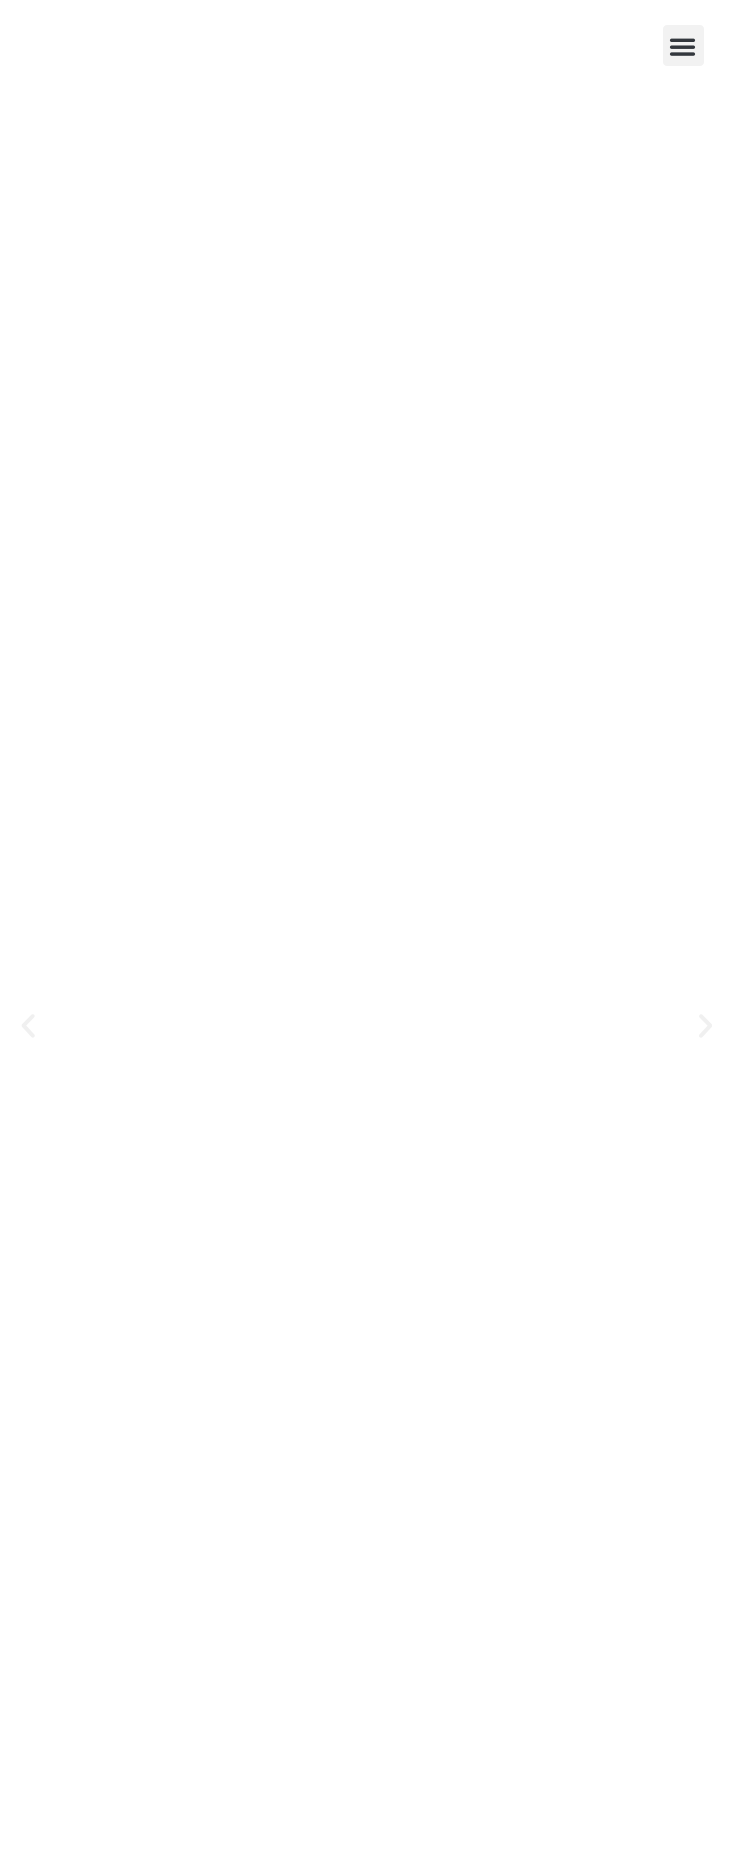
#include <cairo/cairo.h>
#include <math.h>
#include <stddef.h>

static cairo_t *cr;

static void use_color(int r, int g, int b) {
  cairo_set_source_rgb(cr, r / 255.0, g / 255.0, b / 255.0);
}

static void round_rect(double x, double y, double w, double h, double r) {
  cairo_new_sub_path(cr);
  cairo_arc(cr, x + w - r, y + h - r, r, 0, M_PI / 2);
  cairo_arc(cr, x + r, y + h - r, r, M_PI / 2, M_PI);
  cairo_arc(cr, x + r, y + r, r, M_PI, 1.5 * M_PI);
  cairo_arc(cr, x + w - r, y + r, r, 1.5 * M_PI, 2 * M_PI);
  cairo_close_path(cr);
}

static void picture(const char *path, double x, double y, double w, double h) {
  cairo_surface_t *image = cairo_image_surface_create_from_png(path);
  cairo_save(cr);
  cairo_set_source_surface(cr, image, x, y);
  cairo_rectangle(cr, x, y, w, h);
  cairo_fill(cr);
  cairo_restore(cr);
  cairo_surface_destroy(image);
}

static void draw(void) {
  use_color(255, 255, 255);
  cairo_paint(cr);
  use_color(242, 242, 242);
  round_rect(663, 25, 41, 41, 4);
  cairo_fill(cr);
  picture("img_01.png", 669, 38, 27, 18);
  picture("img_02.png", 21, 1014, 14, 24);
  picture("img_03.png", 699, 1014, 13, 24);
}

int main(void) {
  cairo_surface_t *surface = cairo_image_surface_create(CAIRO_FORMAT_RGB24, 733, 1870);
  cr = cairo_create(surface);
  cairo_font_options_t *options = cairo_font_options_create();
  cairo_font_options_set_hint_metrics(options, CAIRO_HINT_METRICS_OFF);
  cairo_font_options_set_hint_style(options, CAIRO_HINT_STYLE_NONE);
  cairo_set_font_options(cr, options);
  cairo_set_miter_limit(cr, 4);
  draw();
  cairo_surface_write_to_png(surface, "out.png");
  cairo_font_options_destroy(options);
  cairo_destroy(cr);
  cairo_surface_destroy(surface);
  return 0;
}
